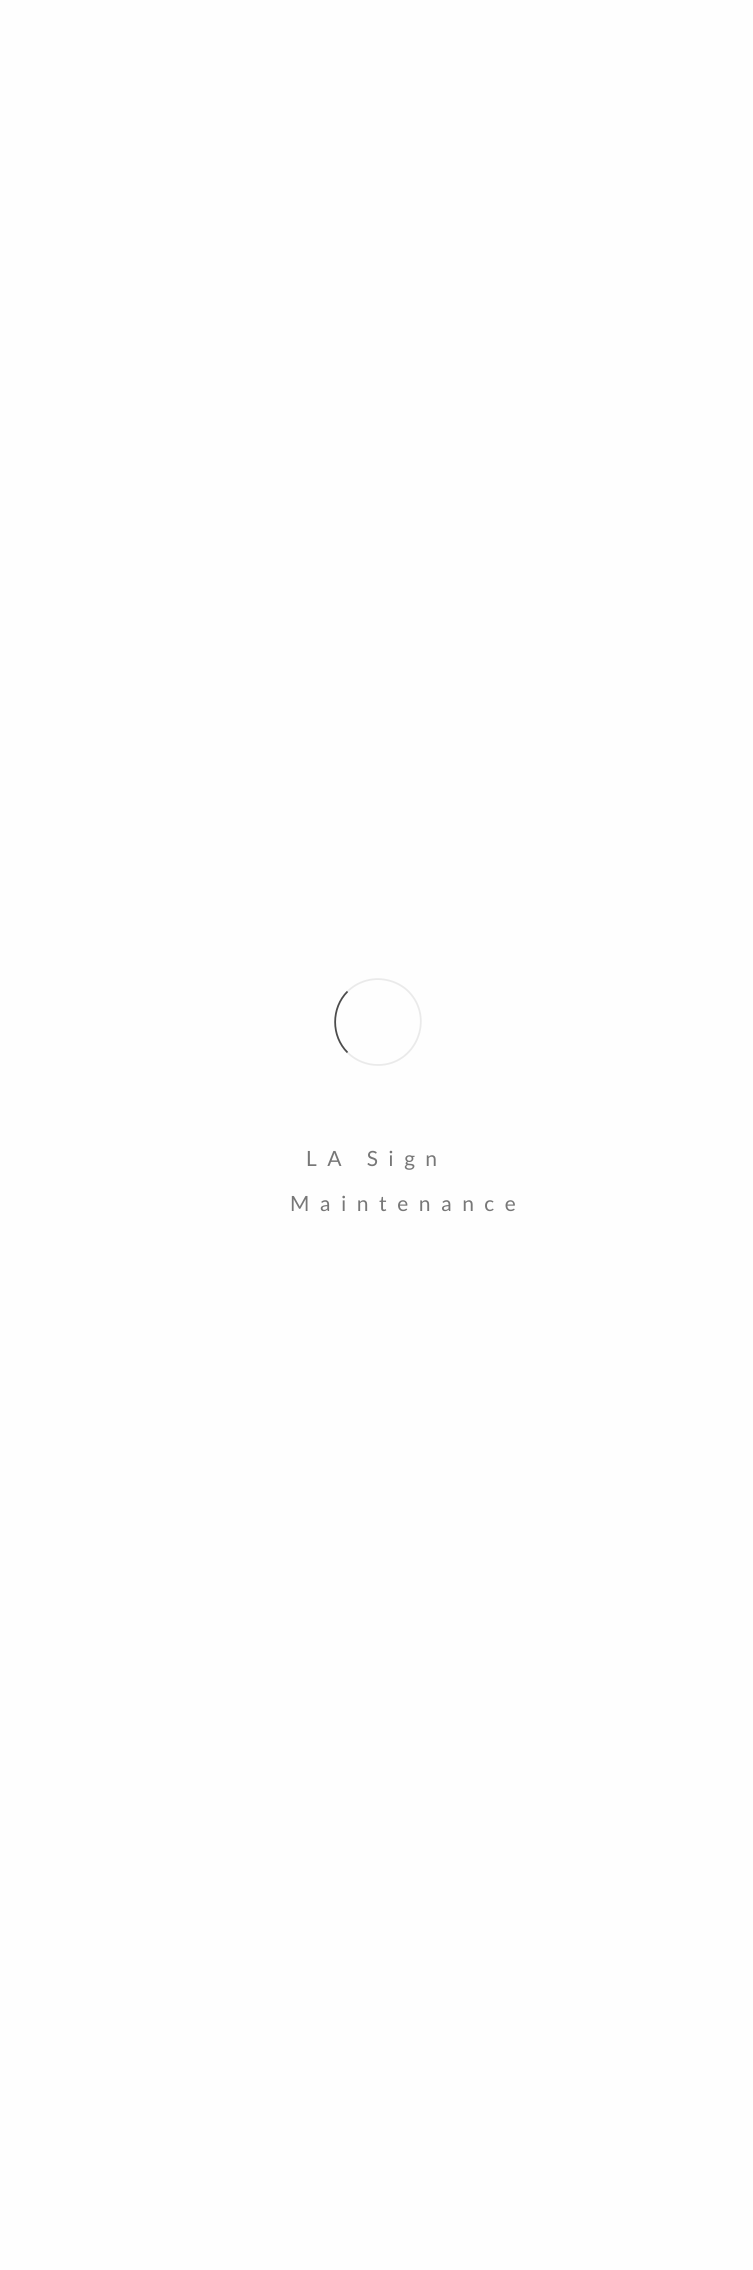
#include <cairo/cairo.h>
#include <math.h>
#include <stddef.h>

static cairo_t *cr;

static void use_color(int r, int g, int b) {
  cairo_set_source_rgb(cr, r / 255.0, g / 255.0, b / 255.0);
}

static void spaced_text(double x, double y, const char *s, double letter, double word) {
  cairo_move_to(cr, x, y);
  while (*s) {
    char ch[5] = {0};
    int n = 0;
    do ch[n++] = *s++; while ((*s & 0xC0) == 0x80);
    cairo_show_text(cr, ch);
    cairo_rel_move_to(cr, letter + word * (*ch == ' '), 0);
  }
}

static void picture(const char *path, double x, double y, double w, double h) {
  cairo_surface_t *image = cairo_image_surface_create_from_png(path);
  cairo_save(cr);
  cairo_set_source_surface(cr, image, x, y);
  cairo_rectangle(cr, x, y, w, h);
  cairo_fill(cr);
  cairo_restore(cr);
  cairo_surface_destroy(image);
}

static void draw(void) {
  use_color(254, 254, 254);
  cairo_paint(cr);
  picture("img_01.png", 206, 26, 344, 265);
  picture("img_02.png", 168, 327, 91, 95);
  picture("img_03.png", 171, 426, 56, 56);
  picture("img_04.png", 515, 532, 76, 72);
  picture("img_05.png", 174, 1022, 409, 271);
  cairo_new_path(cr);
  cairo_move_to(cr, 347.5, 991.5);
  cairo_curve_to(cr, 357.5, 981.5, 372.5, 977, 386.5, 980);
  cairo_curve_to(cr, 394.5, 981.5, 402.5, 985.5, 408.5, 991.5);
  cairo_curve_to(cr, 435, 1018.5, 416, 1065, 378, 1065);
  cairo_curve_to(cr, 366.5, 1065, 355.5, 1060.5, 347.5, 1052.5);
  use_color(234, 234, 234);
  cairo_set_line_width(cr, 1.8);
  cairo_stroke(cr);
  cairo_new_path(cr);
  cairo_move_to(cr, 347.5, 1052.5);
  cairo_curve_to(cr, 331, 1036, 331, 1008, 347.5, 991.5);
  cairo_set_source_rgba(cr, 0, 0, 0, 0.7);
  cairo_stroke(cr);
  cairo_select_font_face(cr, "Lato", CAIRO_FONT_SLANT_NORMAL, CAIRO_FONT_WEIGHT_NORMAL);
  cairo_set_font_size(cr, 21);
  use_color(119, 119, 119);
  spaced_text(306, 1166, "LA Sign", 10.5, 0);
  spaced_text(290, 1211, "Maintenance", 10.5, 0);
}

int main(void) {
  cairo_surface_t *surface = cairo_image_surface_create(CAIRO_FORMAT_RGB24, 753, 2270);
  cr = cairo_create(surface);
  cairo_font_options_t *options = cairo_font_options_create();
  cairo_font_options_set_hint_metrics(options, CAIRO_HINT_METRICS_OFF);
  cairo_font_options_set_hint_style(options, CAIRO_HINT_STYLE_NONE);
  cairo_set_font_options(cr, options);
  cairo_set_miter_limit(cr, 4);
  draw();
  cairo_surface_write_to_png(surface, "out.png");
  cairo_font_options_destroy(options);
  cairo_destroy(cr);
  cairo_surface_destroy(surface);
  return 0;
}
